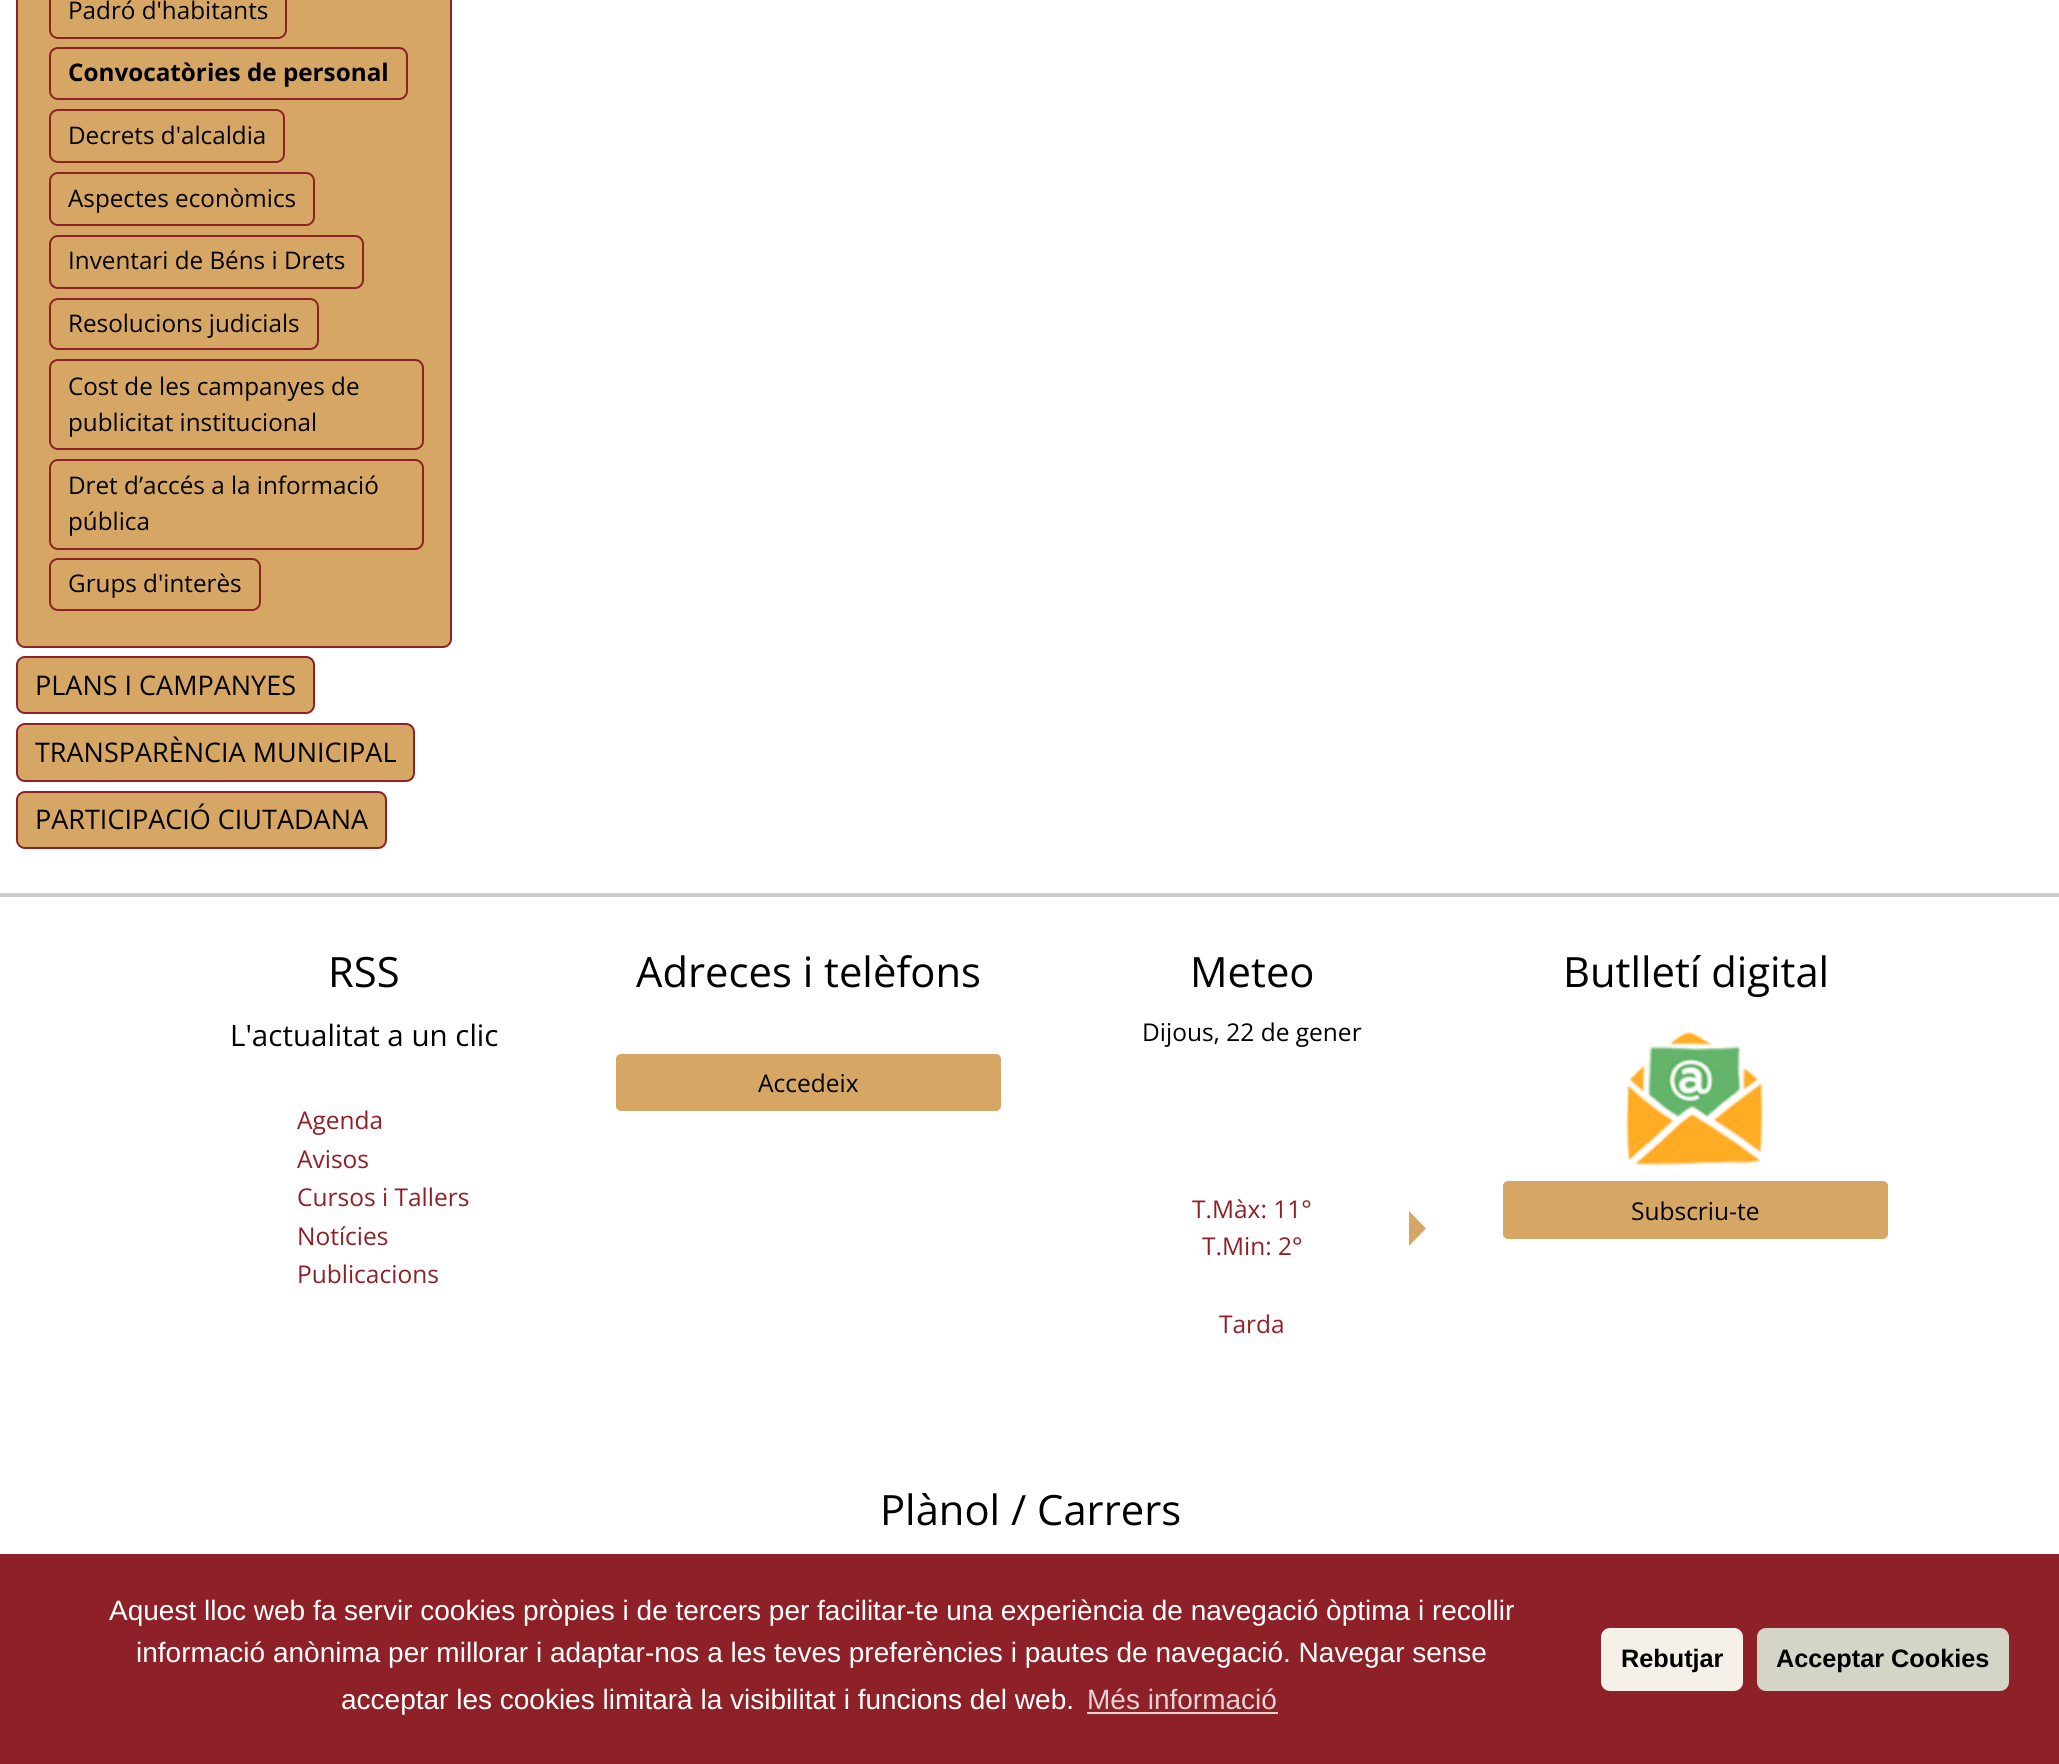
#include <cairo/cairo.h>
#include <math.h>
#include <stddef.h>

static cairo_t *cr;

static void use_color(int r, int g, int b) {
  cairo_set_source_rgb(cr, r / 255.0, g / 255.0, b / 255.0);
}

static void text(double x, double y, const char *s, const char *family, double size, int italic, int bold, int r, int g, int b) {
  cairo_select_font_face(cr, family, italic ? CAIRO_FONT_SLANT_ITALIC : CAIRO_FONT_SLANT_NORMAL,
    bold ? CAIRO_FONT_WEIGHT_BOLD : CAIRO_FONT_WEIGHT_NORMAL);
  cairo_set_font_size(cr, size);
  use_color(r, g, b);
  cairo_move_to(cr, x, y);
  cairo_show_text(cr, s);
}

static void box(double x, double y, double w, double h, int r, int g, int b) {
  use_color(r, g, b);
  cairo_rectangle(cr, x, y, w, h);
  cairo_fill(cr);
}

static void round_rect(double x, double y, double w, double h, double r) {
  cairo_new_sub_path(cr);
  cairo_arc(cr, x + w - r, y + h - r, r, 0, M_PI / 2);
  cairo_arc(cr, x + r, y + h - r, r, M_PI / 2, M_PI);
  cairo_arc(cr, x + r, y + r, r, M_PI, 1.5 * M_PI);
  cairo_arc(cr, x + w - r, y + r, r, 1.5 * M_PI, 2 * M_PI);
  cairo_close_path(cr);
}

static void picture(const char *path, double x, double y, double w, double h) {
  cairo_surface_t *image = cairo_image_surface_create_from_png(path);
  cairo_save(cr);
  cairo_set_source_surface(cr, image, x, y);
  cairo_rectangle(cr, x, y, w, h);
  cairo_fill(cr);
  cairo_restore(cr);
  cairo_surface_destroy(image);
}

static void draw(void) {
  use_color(255, 255, 255);
  cairo_paint(cr);
  use_color(214, 167, 100);
  round_rect(17, -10, 434, 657, 8);
  cairo_fill_preserve(cr);
  use_color(142, 33, 40);
  cairo_stroke(cr);
  round_rect(50, -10, 236, 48, 8);
  cairo_stroke(cr);
  round_rect(50, 48, 357, 51, 8);
  cairo_stroke(cr);
  round_rect(50, 110, 234, 52, 8);
  cairo_stroke(cr);
  round_rect(50, 173, 264, 52, 8);
  cairo_stroke(cr);
  round_rect(50, 236, 313, 52, 8);
  cairo_stroke(cr);
  round_rect(50, 299, 268, 50, 8);
  cairo_stroke(cr);
  round_rect(50, 360, 373, 89, 8);
  cairo_stroke(cr);
  round_rect(50, 460, 373, 89, 8);
  cairo_stroke(cr);
  round_rect(50, 559, 210, 51, 8);
  cairo_stroke(cr);
  use_color(214, 167, 100);
  round_rect(17, 657, 297, 56, 8);
  cairo_fill_preserve(cr);
  use_color(142, 33, 40);
  cairo_stroke(cr);
  use_color(214, 167, 100);
  round_rect(17, 724, 397, 57, 8);
  cairo_fill_preserve(cr);
  use_color(142, 33, 40);
  cairo_stroke(cr);
  use_color(214, 167, 100);
  round_rect(17, 792, 369, 56, 8);
  cairo_fill_preserve(cr);
  use_color(142, 33, 40);
  cairo_stroke(cr);
  box(0, 893, 2059, 4, 204, 204, 204);
  use_color(214, 167, 100);
  round_rect(616, 1054, 385, 57, 5);
  cairo_fill(cr);
  cairo_new_path(cr);
  cairo_move_to(cr, 1409, 1246);
  cairo_line_to(cr, 1409, 1211);
  cairo_line_to(cr, 1426, 1228.5);
  cairo_close_path(cr);
  cairo_fill(cr);
  picture("img_01.png", 1625, 1031, 139, 135);
  round_rect(1503, 1181, 385, 58, 5);
  cairo_fill(cr);
  box(0, 1554, 2059, 210, 142, 33, 40);
  box(1087, 1712, 191, 2, 232, 211, 212);
  use_color(245, 241, 233);
  round_rect(1601, 1628, 142, 63, 9);
  cairo_fill(cr);
  use_color(212, 213, 198);
  round_rect(1757, 1628, 252, 63, 9);
  cairo_fill(cr);
  text(68, 19, "Padró d'habitants", "Open Sans", 24.25, 0, 0, 0, 0, 0);
  text(68, 81, "Convocatòries de personal", "Open Sans", 24.25, 0, 1, 0, 0, 0);
  text(68, 144, "Decrets d'alcaldia", "Open Sans", 24.25, 0, 0, 0, 0, 0);
  text(68, 207, "Aspectes econòmics", "Open Sans", 24.25, 0, 0, 0, 0, 0);
  text(68, 269, "Inventari de Béns i Drets", "Open Sans", 24.25, 0, 0, 0, 0, 0);
  text(68, 332, "Resolucions judicials", "Open Sans", 24.25, 0, 0, 0, 0, 0);
  text(68, 395, "Cost de les campanyes de", "Open Sans", 24.25, 0, 0, 0, 0, 0);
  text(68, 431, "publicitat institucional", "Open Sans", 24.25, 0, 0, 0, 0, 0);
  text(68, 494, "Dret d’accés a la informació", "Open Sans", 24.25, 0, 0, 0, 0, 0);
  text(68, 530, "pública", "Open Sans", 24.25, 0, 0, 0, 0, 0);
  text(68, 592, "Grups d'interès", "Open Sans", 24.25, 0, 0, 0, 0, 0);
  text(35, 695, "PLANS I CAMPANYES", "Open Sans", 27, 0, 0, 0, 0, 0);
  text(35, 762, "TRANSPARÈNCIA MUNICIPAL", "Open Sans", 27, 0, 0, 0, 0, 0);
  text(35, 829, "PARTICIPACIÓ CIUTADANA", "Open Sans", 27, 0, 0, 0, 0, 0);
  text(328, 987, "RSS", "Open Sans", 41.75, 0, 0, 0, 0, 0);
  text(230, 1046, "L'actualitat a un clic", "Open Sans", 29.5, 0, 0, 0, 0, 0);
  text(297, 1129, "Agenda", "Open Sans", 24.5, 0, 0, 142, 33, 40);
  text(297, 1168, "Avisos", "Open Sans", 24.5, 0, 0, 142, 33, 40);
  text(297, 1206, "Cursos i Tallers", "Open Sans", 24.5, 0, 0, 142, 33, 40);
  text(297, 1245, "Notícies", "Open Sans", 24.5, 0, 0, 142, 33, 40);
  text(297, 1283, "Publicacions", "Open Sans", 24.5, 0, 0, 142, 33, 40);
  text(636, 987, "Adreces i telèfons", "Open Sans", 41.75, 0, 0, 0, 0, 0);
  text(758, 1092, "Accedeix", "Open Sans", 24.5, 0, 0, 0, 0, 0);
  text(1190, 987, "Meteo", "Open Sans", 41.75, 0, 0, 0, 0, 0);
  text(1142, 1041, "Dijous, 22 de gener", "Open Sans", 24.5, 0, 0, 0, 0, 0);
  text(1192, 1218, "T.Màx: 11°", "Open Sans", 24.5, 0, 0, 142, 33, 40);
  text(1202, 1255, "T.Min: 2°", "Open Sans", 24.5, 0, 0, 142, 33, 40);
  text(1219, 1333, "Tarda", "Open Sans", 24.5, 0, 0, 142, 33, 40);
  text(1563, 987, "Butlletí digital", "Open Sans", 41.75, 0, 0, 0, 0, 0);
  text(1631, 1220, "Subscriu-te", "Open Sans", 24.5, 0, 0, 0, 0, 0);
  text(880, 1525, "Plànol / Carrers", "Open Sans", 41.75, 0, 0, 0, 0, 0);
  text(109, 1620, "Aquest lloc web fa servir cookies pròpies i de tercers per facilitar-te una experiència de navegació òptima i recollir", "Liberation Sans", 28, 0, 0, 255, 255, 255);
  text(136, 1662, "informació anònima per millorar i adaptar-nos a les teves preferències i pautes de navegació. Navegar sense", "Liberation Sans", 28, 0, 0, 255, 255, 255);
  text(341, 1709, "acceptar les cookies limitarà la visibilitat i funcions del web.", "Liberation Sans", 28, 0, 0, 255, 255, 255);
  text(1087, 1709, "Més informació", "Liberation Sans", 28, 0, 0, 232, 211, 212);
  text(1621, 1667, "Rebutjar", "Liberation Sans", 25.25, 0, 1, 0, 0, 0);
  text(1776, 1667, "Acceptar Cookies", "Liberation Sans", 25.25, 0, 1, 0, 0, 0);
}

int main(void) {
  cairo_surface_t *surface = cairo_image_surface_create(CAIRO_FORMAT_RGB24, 2059, 1764);
  cr = cairo_create(surface);
  cairo_font_options_t *options = cairo_font_options_create();
  cairo_font_options_set_hint_metrics(options, CAIRO_HINT_METRICS_OFF);
  cairo_font_options_set_hint_style(options, CAIRO_HINT_STYLE_NONE);
  cairo_set_font_options(cr, options);
  cairo_set_miter_limit(cr, 4);
  draw();
  cairo_surface_write_to_png(surface, "out.png");
  cairo_font_options_destroy(options);
  cairo_destroy(cr);
  cairo_surface_destroy(surface);
  return 0;
}
